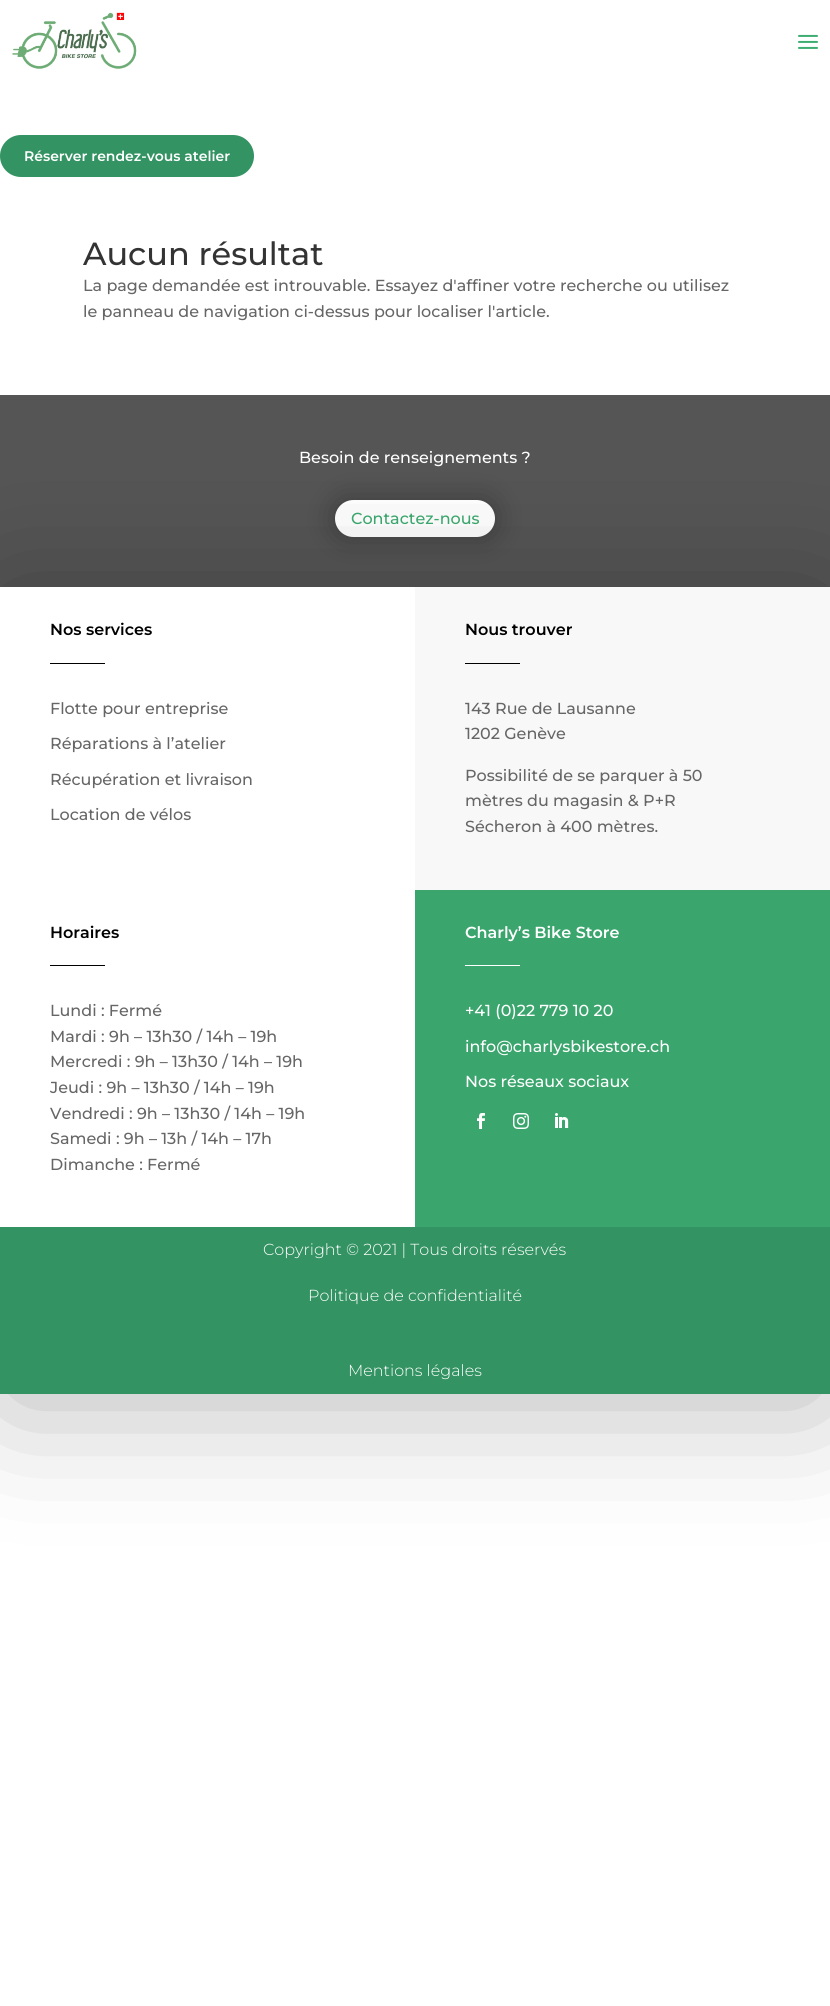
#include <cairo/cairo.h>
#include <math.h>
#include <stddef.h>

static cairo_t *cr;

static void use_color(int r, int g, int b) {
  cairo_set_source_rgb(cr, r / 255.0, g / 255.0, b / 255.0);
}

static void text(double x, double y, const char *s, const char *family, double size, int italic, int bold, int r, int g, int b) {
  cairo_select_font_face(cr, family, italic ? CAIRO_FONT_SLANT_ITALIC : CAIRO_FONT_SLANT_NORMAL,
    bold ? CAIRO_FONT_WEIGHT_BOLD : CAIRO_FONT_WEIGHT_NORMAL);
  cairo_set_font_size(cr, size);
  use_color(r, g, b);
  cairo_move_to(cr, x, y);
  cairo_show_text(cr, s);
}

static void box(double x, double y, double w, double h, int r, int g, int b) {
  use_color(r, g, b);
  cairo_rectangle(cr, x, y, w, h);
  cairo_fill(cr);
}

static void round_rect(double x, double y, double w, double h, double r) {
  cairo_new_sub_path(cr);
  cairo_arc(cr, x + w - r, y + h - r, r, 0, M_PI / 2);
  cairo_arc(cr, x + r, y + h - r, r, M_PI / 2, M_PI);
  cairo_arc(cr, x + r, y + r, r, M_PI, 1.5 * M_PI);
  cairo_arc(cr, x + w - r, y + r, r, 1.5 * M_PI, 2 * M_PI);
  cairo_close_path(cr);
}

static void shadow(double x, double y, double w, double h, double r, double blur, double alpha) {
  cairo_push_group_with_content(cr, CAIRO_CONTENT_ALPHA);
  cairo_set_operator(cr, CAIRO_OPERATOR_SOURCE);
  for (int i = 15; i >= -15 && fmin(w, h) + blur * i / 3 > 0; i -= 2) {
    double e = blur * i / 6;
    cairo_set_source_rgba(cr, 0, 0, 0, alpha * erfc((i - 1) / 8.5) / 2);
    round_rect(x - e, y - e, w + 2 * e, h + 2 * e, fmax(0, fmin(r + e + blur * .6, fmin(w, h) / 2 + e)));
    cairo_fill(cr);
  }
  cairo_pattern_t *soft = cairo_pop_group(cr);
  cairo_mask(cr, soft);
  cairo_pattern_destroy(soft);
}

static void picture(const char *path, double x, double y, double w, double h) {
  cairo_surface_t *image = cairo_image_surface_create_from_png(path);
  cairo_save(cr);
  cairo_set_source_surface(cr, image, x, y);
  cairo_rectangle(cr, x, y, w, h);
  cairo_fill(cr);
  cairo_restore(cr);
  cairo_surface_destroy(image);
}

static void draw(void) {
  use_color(255, 255, 255);
  cairo_paint(cr);
  picture("img_01.png", 12, 12, 125, 57);
  picture("img_02.png", 798, 34, 20, 15);
  use_color(51, 147, 98);
  round_rect(0, 135, 254, 42, 21);
  cairo_fill(cr);
  box(0, 395, 830, 192, 85, 85, 85);
  use_color(0, 0, 0);
  shadow(335, 500, 160, 37, 18.5, 15, 0.29);
  use_color(255, 255, 255);
  round_rect(335, 500, 160, 37, 18.5);
  cairo_fill(cr);
  cairo_save(cr);
  cairo_set_fill_rule(cr, CAIRO_FILL_RULE_EVEN_ODD);
  cairo_new_path(cr);
  cairo_move_to(cr, 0, 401);
  cairo_line_to(cr, 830, 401);
  cairo_line_to(cr, 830, 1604);
  cairo_line_to(cr, 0, 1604);
  cairo_close_path(cr);
  cairo_move_to(cr, 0, 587);
  cairo_line_to(cr, 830, 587);
  cairo_line_to(cr, 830, 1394);
  cairo_line_to(cr, 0, 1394);
  cairo_close_path(cr);
  cairo_clip(cr);
  use_color(0, 0, 0);
  shadow(6, 605, 818, 795, 0, 67.5, 0.3);
  cairo_restore(cr);
  box(50, 663, 55, 1, 0, 0, 0);
  box(415, 587, 415, 303, 248, 248, 248);
  box(465, 663, 55, 1, 0, 0, 0);
  box(50, 965, 55, 1, 0, 0, 0);
  box(415, 890, 415, 337, 58, 165, 108);
  box(465, 965, 55, 1, 255, 255, 255);
  picture("img_03.png", 477, 1113, 8, 16);
  picture("img_04.png", 513, 1113, 16, 16);
  picture("img_05.png", 555, 1113, 14, 15);
  box(0, 1227, 830, 167, 51, 147, 98);
  text(24, 161, "Réserver rendez-vous atelier", "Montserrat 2 Thin", 14, 0, 0, 255, 255, 255);
  text(83, 265, "Aucun résultat", "Montserrat Thin", 32, 0, 0, 51, 51, 51);
  text(83, 291, "La page demandée est introuvable. Essayez d'affiner votre recherche ou utilisez", "Montserrat Thin", 16, 0, 0, 102, 102, 102);
  text(83, 317, "le panneau de navigation ci-dessus pour localiser l'article.", "Montserrat Thin", 16, 0, 0, 102, 102, 102);
  text(299, 463, "Besoin de renseignements ?", "Montserrat Thin", 16, 0, 0, 255, 255, 255);
  text(351, 524, "Contactez-nous", "Montserrat Thin", 16, 0, 0, 58, 165, 108);
  text(50, 635, "Nos services", "Montserrat 2 Thin", 16, 0, 0, 0, 0, 0);
  text(50, 714, "Flotte pour entreprise", "Montserrat Thin", 16, 0, 0, 102, 102, 102);
  text(50, 749, "Réparations à l’atelier", "Montserrat Thin", 16, 0, 0, 102, 102, 102);
  text(50, 785, "Récupération et livraison", "Montserrat Thin", 16, 0, 0, 102, 102, 102);
  text(50, 820, "Location de vélos", "Montserrat Thin", 16, 0, 0, 102, 102, 102);
  text(465, 635, "Nous trouver", "Montserrat 2 Thin", 16, 0, 0, 0, 0, 0);
  text(465, 714, "143 Rue de Lausanne", "Montserrat Thin", 16, 0, 0, 102, 102, 102);
  text(465, 739, "1202 Genève", "Montserrat Thin", 16, 0, 0, 102, 102, 102);
  text(465, 781, "Possibilité de se parquer à 50", "Montserrat Thin", 16, 0, 0, 102, 102, 102);
  text(465, 806, "mètres du magasin & P+R", "Montserrat Thin", 16, 0, 0, 102, 102, 102);
  text(465, 832, "Sécheron à 400 mètres.", "Montserrat Thin", 16, 0, 0, 102, 102, 102);
  text(50, 938, "Horaires", "Montserrat 2 Thin", 16, 0, 0, 0, 0, 0);
  text(50, 1016, "Lundi : Fermé", "Montserrat Thin", 16, 0, 0, 102, 102, 102);
  text(50, 1042, "Mardi : 9h – 13h30 / 14h – 19h", "Montserrat Thin", 16, 0, 0, 102, 102, 102);
  text(50, 1067, "Mercredi : 9h – 13h30 / 14h – 19h", "Montserrat Thin", 16, 0, 0, 102, 102, 102);
  text(50, 1093, "Jeudi : 9h – 13h30 / 14h – 19h", "Montserrat Thin", 16, 0, 0, 102, 102, 102);
  text(50, 1119, "Vendredi : 9h – 13h30 / 14h – 19h", "Montserrat Thin", 16, 0, 0, 102, 102, 102);
  text(50, 1144, "Samedi : 9h – 13h / 14h – 17h", "Montserrat Thin", 16, 0, 0, 102, 102, 102);
  text(50, 1170, "Dimanche : Fermé", "Montserrat Thin", 16, 0, 0, 102, 102, 102);
  text(465, 938, "Charly’s Bike Store", "Montserrat 2 Thin", 16, 0, 0, 255, 255, 255);
  text(465, 1016, "+41 (0)22 779 10 20", "Montserrat Thin", 16, 0, 0, 255, 255, 255);
  text(465, 1052, "info@charlysbikestore.ch", "Montserrat Thin", 16, 0, 0, 255, 255, 255);
  text(465, 1087, "Nos réseaux sociaux", "Montserrat Thin", 16, 0, 0, 255, 255, 255);
  text(263, 1255, "Copyright © 2021 | Tous droits réservés", "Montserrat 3 Thin", 16, 0, 0, 255, 255, 255);
  text(308, 1301, "Politique de confidentialité", "Montserrat 3 Thin", 16, 0, 0, 255, 255, 255);
  text(348, 1376, "Mentions légales", "Montserrat 3 Thin", 16, 0, 0, 255, 255, 255);
}

int main(void) {
  cairo_surface_t *surface = cairo_image_surface_create(CAIRO_FORMAT_RGB24, 830, 2006);
  cr = cairo_create(surface);
  cairo_font_options_t *options = cairo_font_options_create();
  cairo_font_options_set_hint_metrics(options, CAIRO_HINT_METRICS_OFF);
  cairo_font_options_set_hint_style(options, CAIRO_HINT_STYLE_NONE);
  cairo_set_font_options(cr, options);
  cairo_set_miter_limit(cr, 4);
  draw();
  cairo_surface_write_to_png(surface, "out.png");
  cairo_font_options_destroy(options);
  cairo_destroy(cr);
  cairo_surface_destroy(surface);
  return 0;
}
